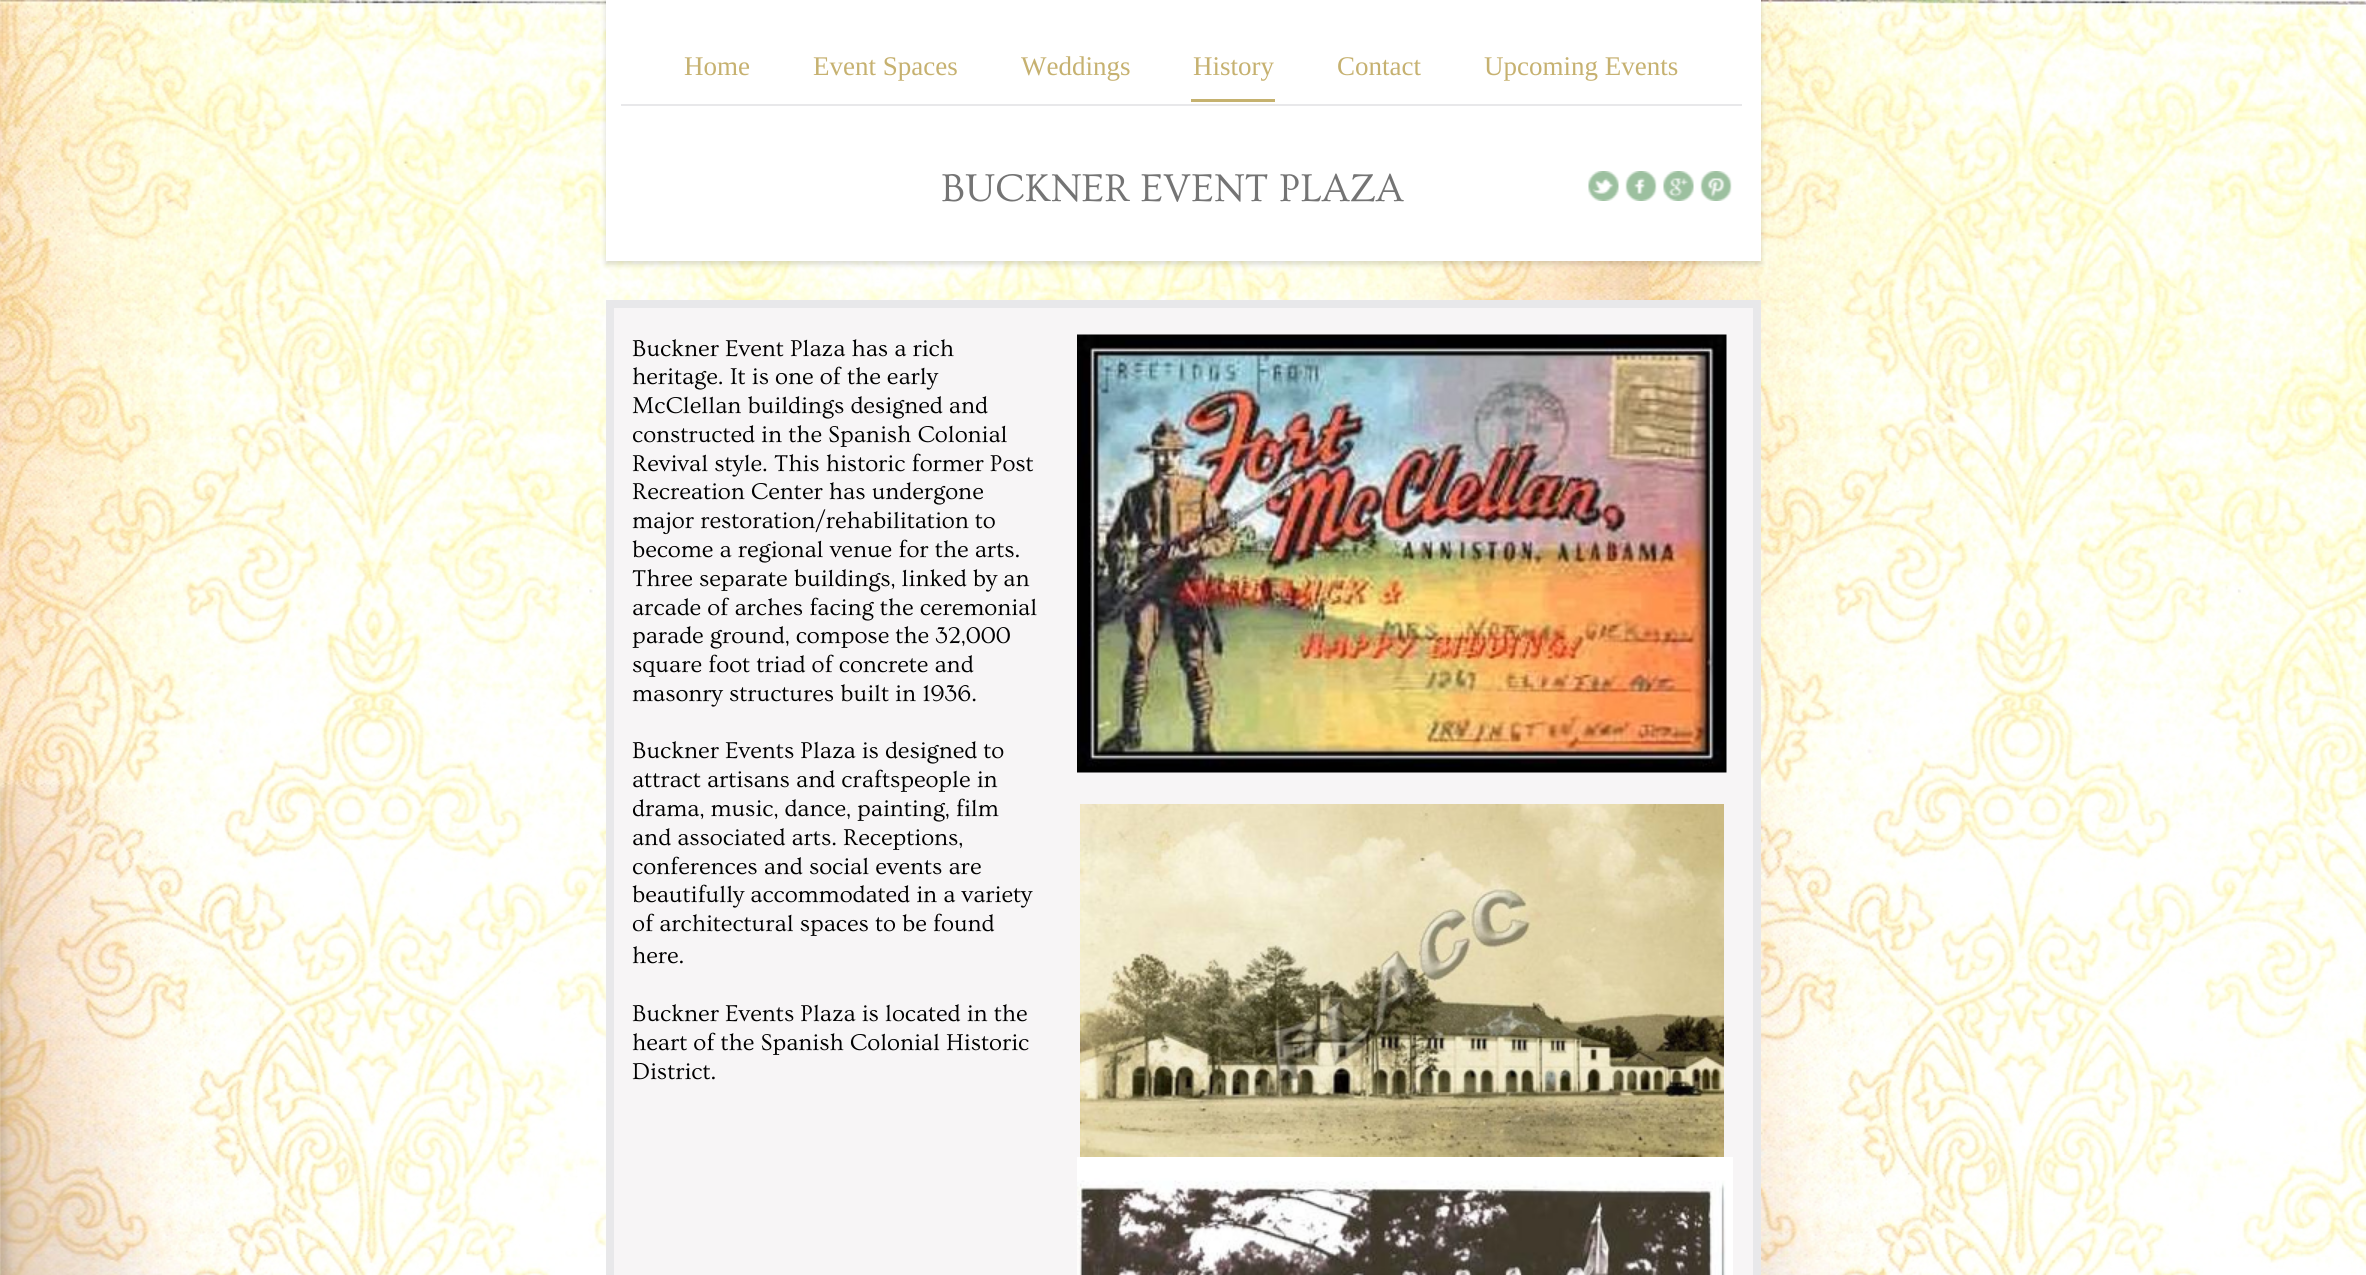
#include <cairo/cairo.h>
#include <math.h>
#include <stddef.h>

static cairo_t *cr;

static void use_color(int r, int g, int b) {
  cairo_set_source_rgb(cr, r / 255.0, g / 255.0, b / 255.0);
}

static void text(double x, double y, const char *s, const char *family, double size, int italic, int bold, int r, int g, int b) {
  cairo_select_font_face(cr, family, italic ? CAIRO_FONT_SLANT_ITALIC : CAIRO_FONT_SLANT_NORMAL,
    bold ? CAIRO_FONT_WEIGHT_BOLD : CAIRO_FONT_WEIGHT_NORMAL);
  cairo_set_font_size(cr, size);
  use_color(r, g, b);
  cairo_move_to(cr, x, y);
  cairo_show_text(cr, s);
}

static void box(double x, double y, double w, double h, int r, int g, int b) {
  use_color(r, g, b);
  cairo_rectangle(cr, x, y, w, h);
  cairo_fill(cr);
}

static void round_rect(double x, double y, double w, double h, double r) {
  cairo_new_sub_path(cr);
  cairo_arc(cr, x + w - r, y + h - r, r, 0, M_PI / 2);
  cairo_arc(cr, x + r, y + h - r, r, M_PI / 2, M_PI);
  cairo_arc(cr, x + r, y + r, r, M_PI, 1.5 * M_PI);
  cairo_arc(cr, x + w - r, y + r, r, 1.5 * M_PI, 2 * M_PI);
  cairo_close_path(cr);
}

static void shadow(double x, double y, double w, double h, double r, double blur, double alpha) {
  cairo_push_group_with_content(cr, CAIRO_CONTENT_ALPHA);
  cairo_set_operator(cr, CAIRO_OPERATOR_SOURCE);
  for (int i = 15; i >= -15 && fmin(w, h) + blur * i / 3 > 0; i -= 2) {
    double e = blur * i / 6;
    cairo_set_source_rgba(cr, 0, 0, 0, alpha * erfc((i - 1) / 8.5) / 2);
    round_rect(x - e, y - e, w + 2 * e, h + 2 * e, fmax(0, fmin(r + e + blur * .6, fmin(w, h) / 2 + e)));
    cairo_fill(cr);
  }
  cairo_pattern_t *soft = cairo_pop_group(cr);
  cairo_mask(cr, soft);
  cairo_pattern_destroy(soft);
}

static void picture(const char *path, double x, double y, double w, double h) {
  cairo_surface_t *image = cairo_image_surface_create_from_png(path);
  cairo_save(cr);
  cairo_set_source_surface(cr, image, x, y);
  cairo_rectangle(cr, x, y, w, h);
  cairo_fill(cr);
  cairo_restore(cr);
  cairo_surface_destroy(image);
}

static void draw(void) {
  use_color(255, 255, 255);
  cairo_paint(cr);
  picture("img_01.png", 0, 0, 2366, 1275);
  use_color(247, 245, 246);
  cairo_rectangle(cr, 610, 304, 1147, 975);
  cairo_fill_preserve(cr);
  use_color(232, 232, 234);
  cairo_set_line_width(cr, 8);
  cairo_stroke(cr);
  use_color(0, 0, 0);
  shadow(606, -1, 1155, 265, 0, 3, 0.15);
  box(606, 0, 1155, 261, 255, 255, 255);
  box(621, 104, 1121, 2, 232, 232, 234);
  box(1191, 99, 84, 3, 197, 177, 110);
  picture("img_02.png", 1588, 171, 31, 30);
  picture("img_03.png", 1625, 171, 32, 30);
  picture("img_04.png", 1663, 171, 31, 30);
  picture("img_05.png", 1700, 171, 32, 30);
  picture("img_06.png", 1077, 334, 650, 439);
  picture("img_07.png", 1080, 804, 644, 353);
  picture("img_08.png", 1077, 1157, 656, 118);
  text(684, 75, "Home", "Liberation Serif", 27, 0, 0, 198, 177, 112);
  text(813, 75, "Event Spaces", "Liberation Serif", 27, 0, 0, 198, 177, 112);
  text(1021, 75, "Weddings", "Liberation Serif", 27, 0, 0, 198, 177, 112);
  text(1193, 75, "History", "Liberation Serif", 27, 0, 0, 198, 177, 112);
  text(1337, 75, "Contact", "Liberation Serif", 27, 0, 0, 198, 177, 112);
  text(1484, 75, "Upcoming Events", "Liberation Serif", 27, 0, 0, 198, 177, 112);
  text(941, 201, "BUCKNER EVENT PLAZA", "Ovo", 40.5, 0, 0, 116, 116, 116);
  text(632, 356, "Buckner Event Plaza has a rich", "Ovo", 24, 0, 0, 0, 0, 0);
  text(632, 384, "heritage. It is one of the early", "Ovo", 24, 0, 0, 0, 0, 0);
  text(632, 413, "McClellan buildings designed and", "Ovo", 24, 0, 0, 0, 0, 0);
  text(632, 442, "constructed in the Spanish Colonial", "Ovo", 24, 0, 0, 0, 0, 0);
  text(632, 471, "Revival style. This historic former Post", "Ovo", 24, 0, 0, 0, 0, 0);
  text(632, 499, "Recreation Center has undergone", "Ovo", 24, 0, 0, 0, 0, 0);
  text(632, 528, "major restoration/rehabilitation to", "Ovo", 24, 0, 0, 0, 0, 0);
  text(632, 557, "become a regional venue for the arts.", "Ovo", 24, 0, 0, 0, 0, 0);
  text(632, 586, "Three separate buildings, linked by an", "Ovo", 24, 0, 0, 0, 0, 0);
  text(632, 615, "arcade of arches facing the ceremonial", "Ovo", 24, 0, 0, 0, 0, 0);
  text(632, 643, "parade ground, compose the 32,000", "Ovo", 24, 0, 0, 0, 0, 0);
  text(632, 672, "square foot triad of concrete and", "Ovo", 24, 0, 0, 0, 0, 0);
  text(632, 701, "masonry structures built in 1936.", "Ovo", 24, 0, 0, 0, 0, 0);
  text(632, 758, "Buckner Events Plaza is designed to", "Ovo", 24, 0, 0, 0, 0, 0);
  text(632, 787, "attract artisans and craftspeople in", "Ovo", 24, 0, 0, 0, 0, 0);
  text(632, 816, "drama, music, dance, painting, film", "Ovo", 24, 0, 0, 0, 0, 0);
  text(632, 845, "and associated arts. Receptions,", "Ovo", 24, 0, 0, 0, 0, 0);
  text(632, 874, "conferences and social events are", "Ovo", 24, 0, 0, 0, 0, 0);
  text(632, 902, "beautifully accommodated in a variety", "Ovo", 24, 0, 0, 0, 0, 0);
  text(632, 931, "of architectural spaces to be found", "Ovo", 24, 0, 0, 0, 0, 0);
  text(632, 963, "here.", "Ovo", 24, 0, 0, 0, 0, 0);
  text(632, 1021, "Buckner Events Plaza is located in the", "Ovo", 24, 0, 0, 0, 0, 0);
  text(632, 1050, "heart of the Spanish Colonial Historic", "Ovo", 24, 0, 0, 0, 0, 0);
  text(632, 1079, "District.", "Ovo", 24, 0, 0, 0, 0, 0);
}

int main(void) {
  cairo_surface_t *surface = cairo_image_surface_create(CAIRO_FORMAT_RGB24, 2366, 1275);
  cr = cairo_create(surface);
  cairo_font_options_t *options = cairo_font_options_create();
  cairo_font_options_set_hint_metrics(options, CAIRO_HINT_METRICS_OFF);
  cairo_font_options_set_hint_style(options, CAIRO_HINT_STYLE_NONE);
  cairo_set_font_options(cr, options);
  cairo_set_miter_limit(cr, 4);
  draw();
  cairo_surface_write_to_png(surface, "out.png");
  cairo_font_options_destroy(options);
  cairo_destroy(cr);
  cairo_surface_destroy(surface);
  return 0;
}
